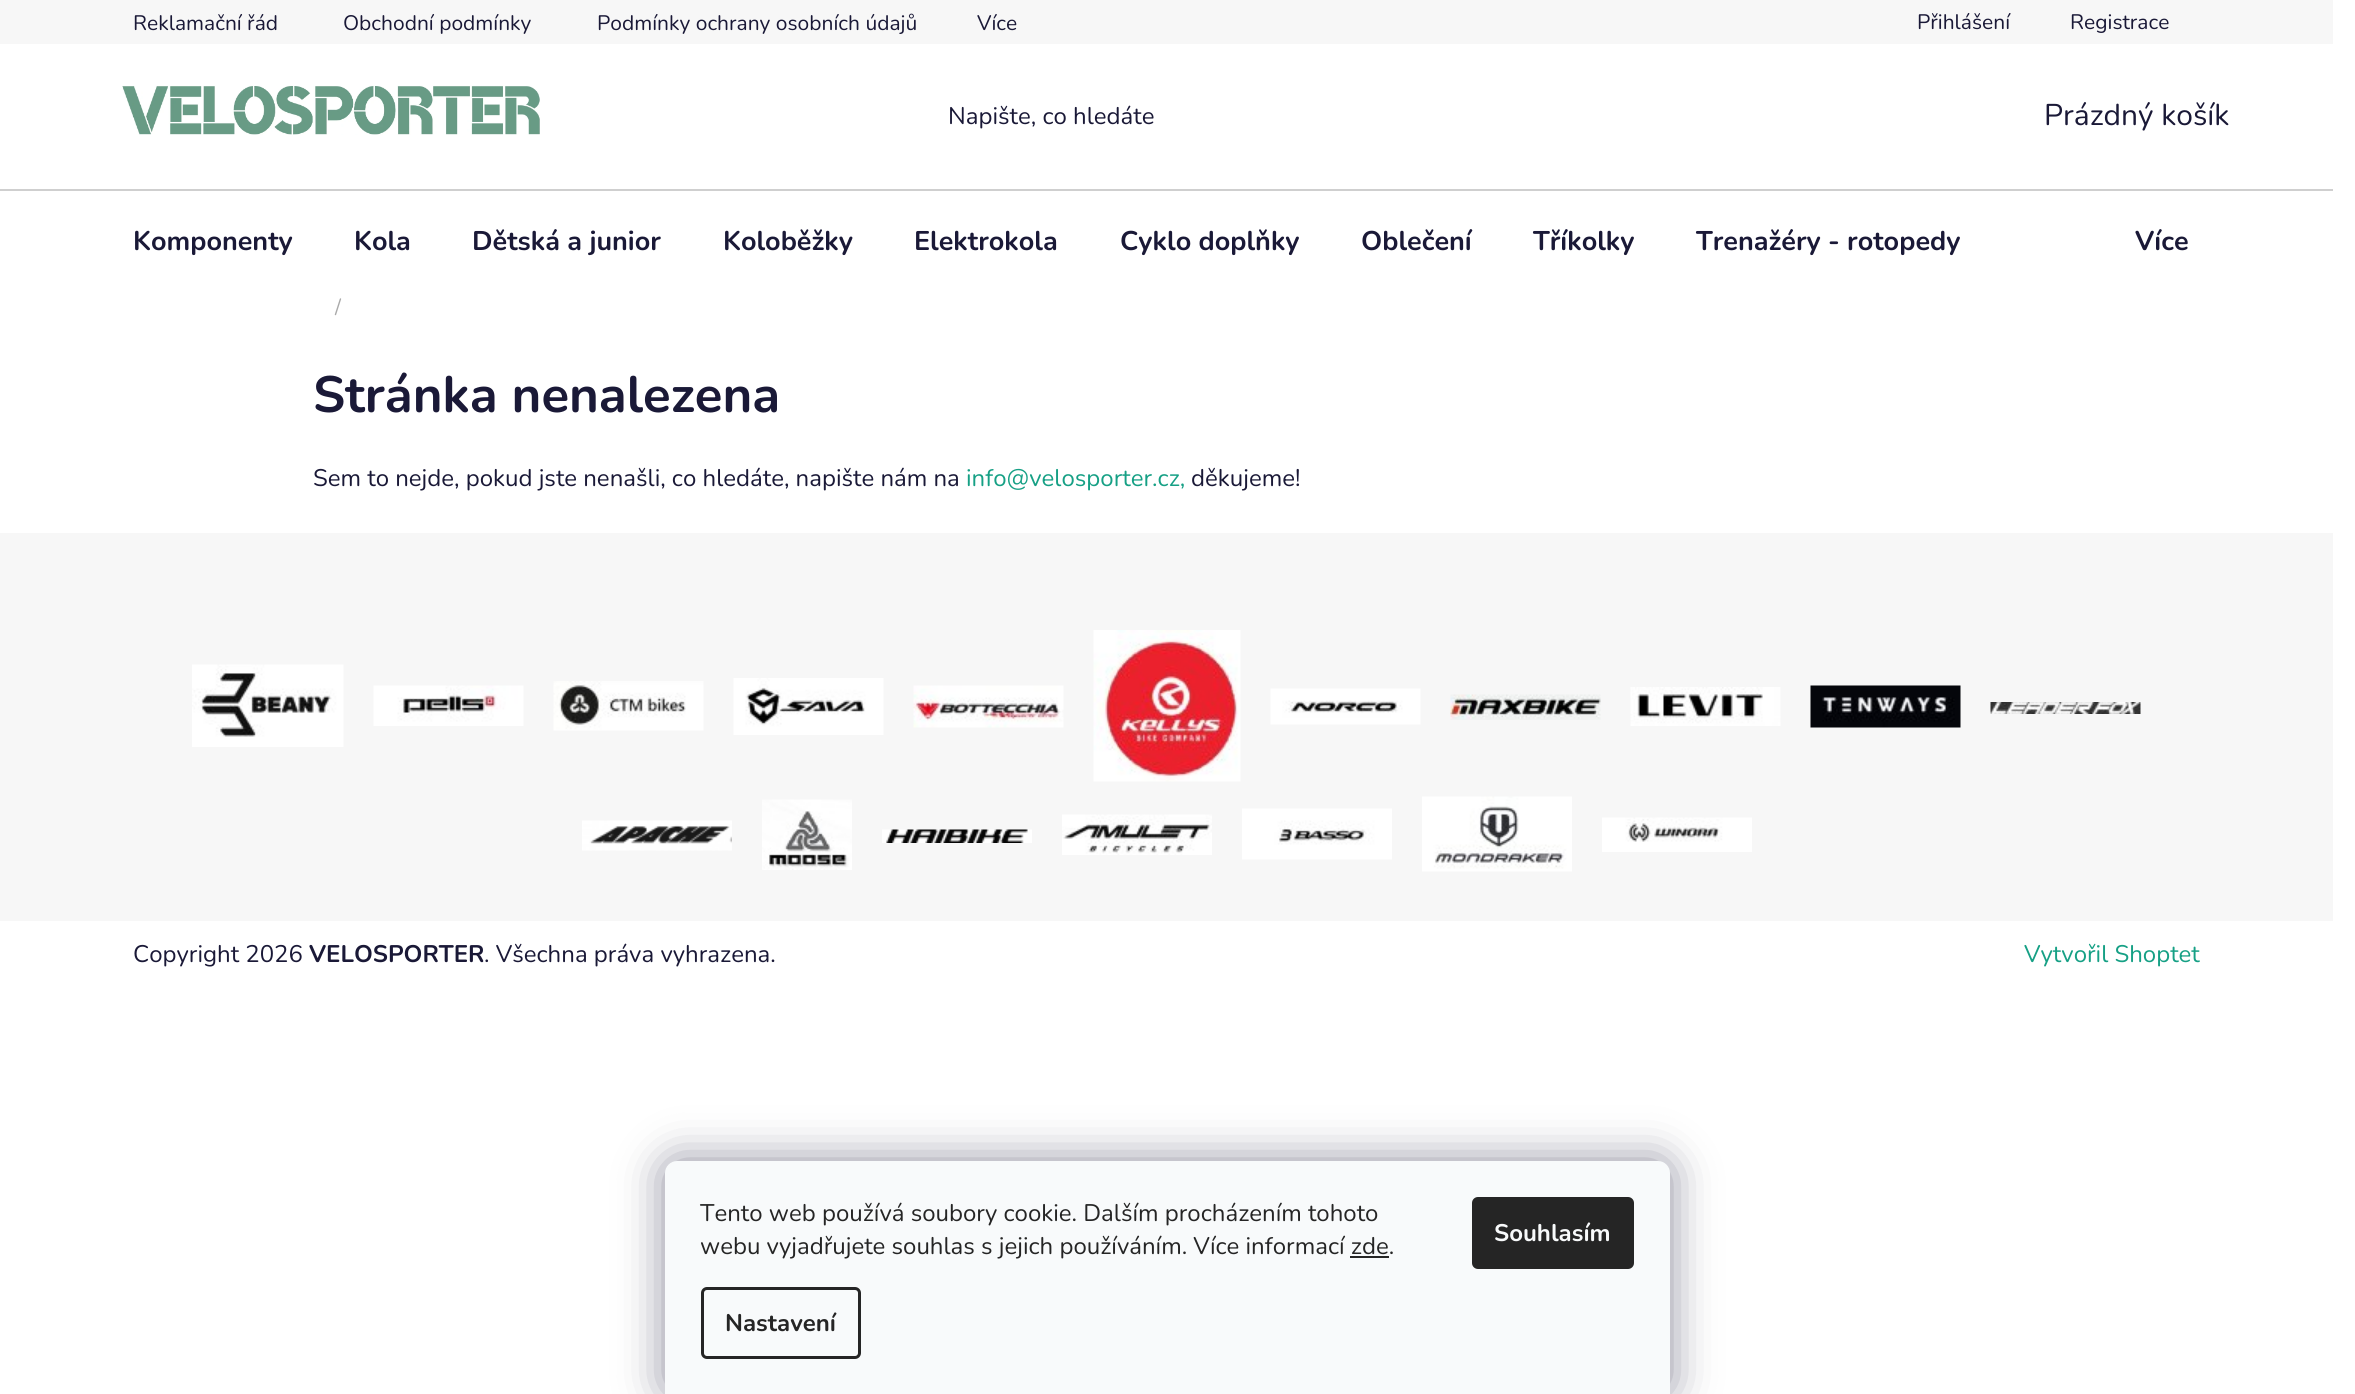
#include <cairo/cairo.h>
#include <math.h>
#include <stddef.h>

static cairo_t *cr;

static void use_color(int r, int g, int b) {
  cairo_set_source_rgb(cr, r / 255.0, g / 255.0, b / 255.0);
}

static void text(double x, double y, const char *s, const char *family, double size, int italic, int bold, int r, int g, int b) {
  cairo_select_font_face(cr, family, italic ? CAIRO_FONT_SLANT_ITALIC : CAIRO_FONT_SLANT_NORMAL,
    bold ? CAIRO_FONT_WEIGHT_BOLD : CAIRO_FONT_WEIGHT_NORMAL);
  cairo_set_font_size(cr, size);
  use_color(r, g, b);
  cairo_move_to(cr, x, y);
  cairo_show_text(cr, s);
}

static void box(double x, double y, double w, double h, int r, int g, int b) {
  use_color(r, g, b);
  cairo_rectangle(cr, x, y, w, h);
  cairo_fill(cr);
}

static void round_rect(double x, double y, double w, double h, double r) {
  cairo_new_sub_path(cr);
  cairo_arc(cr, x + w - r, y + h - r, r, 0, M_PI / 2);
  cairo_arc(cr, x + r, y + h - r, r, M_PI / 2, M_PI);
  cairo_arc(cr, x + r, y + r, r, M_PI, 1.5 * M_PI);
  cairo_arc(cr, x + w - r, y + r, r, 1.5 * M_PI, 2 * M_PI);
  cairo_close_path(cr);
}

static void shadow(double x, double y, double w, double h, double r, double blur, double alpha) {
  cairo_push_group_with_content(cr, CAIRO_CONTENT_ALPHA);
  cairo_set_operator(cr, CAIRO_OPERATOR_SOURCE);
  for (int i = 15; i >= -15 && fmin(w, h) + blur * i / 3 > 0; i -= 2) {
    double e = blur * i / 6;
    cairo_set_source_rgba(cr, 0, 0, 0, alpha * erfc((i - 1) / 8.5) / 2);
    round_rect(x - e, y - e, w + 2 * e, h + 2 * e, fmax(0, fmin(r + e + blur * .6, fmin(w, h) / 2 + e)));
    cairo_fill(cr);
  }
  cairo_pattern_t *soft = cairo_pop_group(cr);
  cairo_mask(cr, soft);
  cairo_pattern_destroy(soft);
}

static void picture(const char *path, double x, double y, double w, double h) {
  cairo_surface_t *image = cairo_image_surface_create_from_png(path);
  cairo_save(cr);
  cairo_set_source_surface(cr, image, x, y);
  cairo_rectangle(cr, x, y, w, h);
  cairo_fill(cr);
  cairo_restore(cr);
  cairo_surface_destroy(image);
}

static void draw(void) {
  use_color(255, 255, 255);
  cairo_paint(cr);
  box(0, 0, 2333, 44, 247, 247, 247);
  picture("img_01.png", 122, 85, 418, 50);
  box(0, 189, 2333, 2, 207, 207, 207);
  box(0, 533, 2333, 388, 247, 247, 247);
  picture("img_02.png", 192, 664, 152, 83);
  picture("img_03.png", 373, 685, 151, 41);
  picture("img_04.png", 553, 681, 151, 50);
  picture("img_05.png", 733, 678, 151, 57);
  picture("img_06.png", 913, 685, 151, 43);
  picture("img_07.png", 1093, 630, 148, 152);
  picture("img_08.png", 1270, 688, 151, 37);
  picture("img_09.png", 1450, 694, 151, 26);
  picture("img_10.png", 1630, 687, 151, 39);
  picture("img_11.png", 1810, 685, 151, 43);
  picture("img_12.png", 1990, 702, 151, 12);
  picture("img_13.png", 582, 820, 150, 31);
  picture("img_14.png", 762, 799, 90, 71);
  picture("img_15.png", 882, 829, 150, 14);
  picture("img_16.png", 1062, 814, 150, 41);
  picture("img_17.png", 1242, 808, 150, 52);
  picture("img_18.png", 1422, 796, 150, 76);
  picture("img_19.png", 1602, 817, 150, 35);
  use_color(27, 25, 57);
  shadow(665, 1161, 1005, 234, 12, 22.5, 0.5);
  use_color(248, 250, 251);
  cairo_new_path(cr);
  cairo_move_to(cr, 677, 1161);
  cairo_line_to(cr, 1658, 1161);
  cairo_curve_to(cr, 1664.5, 1161, 1670, 1166.5, 1670, 1173);
  cairo_line_to(cr, 1670, 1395);
  cairo_line_to(cr, 665, 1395);
  cairo_line_to(cr, 665, 1173);
  cairo_curve_to(cr, 665, 1166.5, 670.5, 1161, 677, 1161);
  cairo_close_path(cr);
  cairo_fill(cr);
  box(1350, 1256, 39, 2, 37, 37, 37);
  round_rect(702.5, 1288.5, 157, 69, 4.5);
  cairo_set_line_width(cr, 3);
  cairo_stroke(cr);
  round_rect(1472, 1197, 162, 72, 6);
  cairo_fill(cr);
  text(133, 30, "Reklamační řád", "Nunito", 21, 0, 0, 26, 25, 55);
  text(343, 30, "Obchodní podmínky", "Nunito", 21, 0, 0, 26, 25, 55);
  text(597, 30, "Podmínky ochrany osobních údajů", "Nunito", 21, 0, 0, 26, 25, 55);
  text(977, 30, "Více", "Nunito", 21, 0, 0, 26, 25, 55);
  text(1917, 29, "Přihlášení", "Nunito", 21, 0, 0, 26, 25, 55);
  text(2070, 29, "Registrace", "Nunito", 21, 0, 0, 26, 25, 55);
  text(948, 124, "Napište, co hledáte", "Nunito", 24, 0, 0, 26, 25, 55);
  text(2044, 125, "Prázdný košík", "Nunito", 30, 0, 0, 26, 25, 55);
  text(133, 250, "Komponenty", "Nunito", 27, 0, 1, 26, 25, 55);
  text(354, 250, "Kola", "Nunito", 27, 0, 1, 26, 25, 55);
  text(472, 250, "Dětská a junior", "Nunito", 27, 0, 1, 26, 25, 55);
  text(723, 250, "Koloběžky", "Nunito", 27, 0, 1, 26, 25, 55);
  text(914, 250, "Elektrokola", "Nunito", 27, 0, 1, 26, 25, 55);
  text(1120, 250, "Cyklo doplňky", "Nunito", 27, 0, 1, 26, 25, 55);
  text(1361, 250, "Oblečení", "Nunito", 27, 0, 1, 26, 25, 55);
  text(1533, 250, "Tříkolky", "Nunito", 27, 0, 1, 26, 25, 55);
  text(1696, 250, "Trenažéry - rotopedy", "Nunito", 27, 0, 1, 26, 25, 55);
  text(2135, 250, "Více", "Nunito", 27, 0, 1, 26, 25, 55);
  text(335, 314, "/", "Nunito", 21, 0, 0, 170, 170, 170);
  text(313, 412, "Stránka nenalezena", "Nunito", 51, 0, 1, 26, 25, 55);
  text(313, 486, "Sem to nejde, pokud jste nenašli, co hledáte, napište nám na", "Nunito", 24, 0, 0, 26, 25, 55);
  text(966, 486, "info@velosporter.cz,", "Nunito", 24, 0, 0, 22, 160, 133);
  text(1191, 486, "děkujeme!", "Nunito", 24, 0, 0, 26, 25, 55);
  text(133, 962, "Copyright 2026", "Nunito", 24, 0, 0, 26, 25, 55);
  text(309, 962, "VELOSPORTER", "Nunito", 24, 0, 1, 26, 25, 55);
  text(484, 962, ". Všechna práva vyhrazena.", "Nunito", 24, 0, 0, 26, 25, 55);
  text(2024, 962, "Vytvořil Shoptet", "Nunito", 24, 0, 0, 22, 160, 133);
  text(700, 1221, "Tento web používá soubory cookie. Dalším procházením tohoto", "Nunito", 24, 0, 0, 37, 37, 37);
  text(700, 1254, "webu vyjadřujete souhlas s jejich používáním. Více informací zde.", "Nunito", 24, 0, 0, 37, 37, 37);
  text(725, 1331, "Nastavení", "Nunito", 24, 0, 1, 37, 37, 37);
  text(1494, 1241, "Souhlasím", "Nunito", 24, 0, 1, 248, 250, 251);
}

int main(void) {
  cairo_surface_t *surface = cairo_image_surface_create(CAIRO_FORMAT_RGB24, 2355, 1394);
  cr = cairo_create(surface);
  cairo_font_options_t *options = cairo_font_options_create();
  cairo_font_options_set_hint_metrics(options, CAIRO_HINT_METRICS_OFF);
  cairo_font_options_set_hint_style(options, CAIRO_HINT_STYLE_NONE);
  cairo_set_font_options(cr, options);
  cairo_set_miter_limit(cr, 4);
  draw();
  cairo_surface_write_to_png(surface, "out.png");
  cairo_font_options_destroy(options);
  cairo_destroy(cr);
  cairo_surface_destroy(surface);
  return 0;
}
